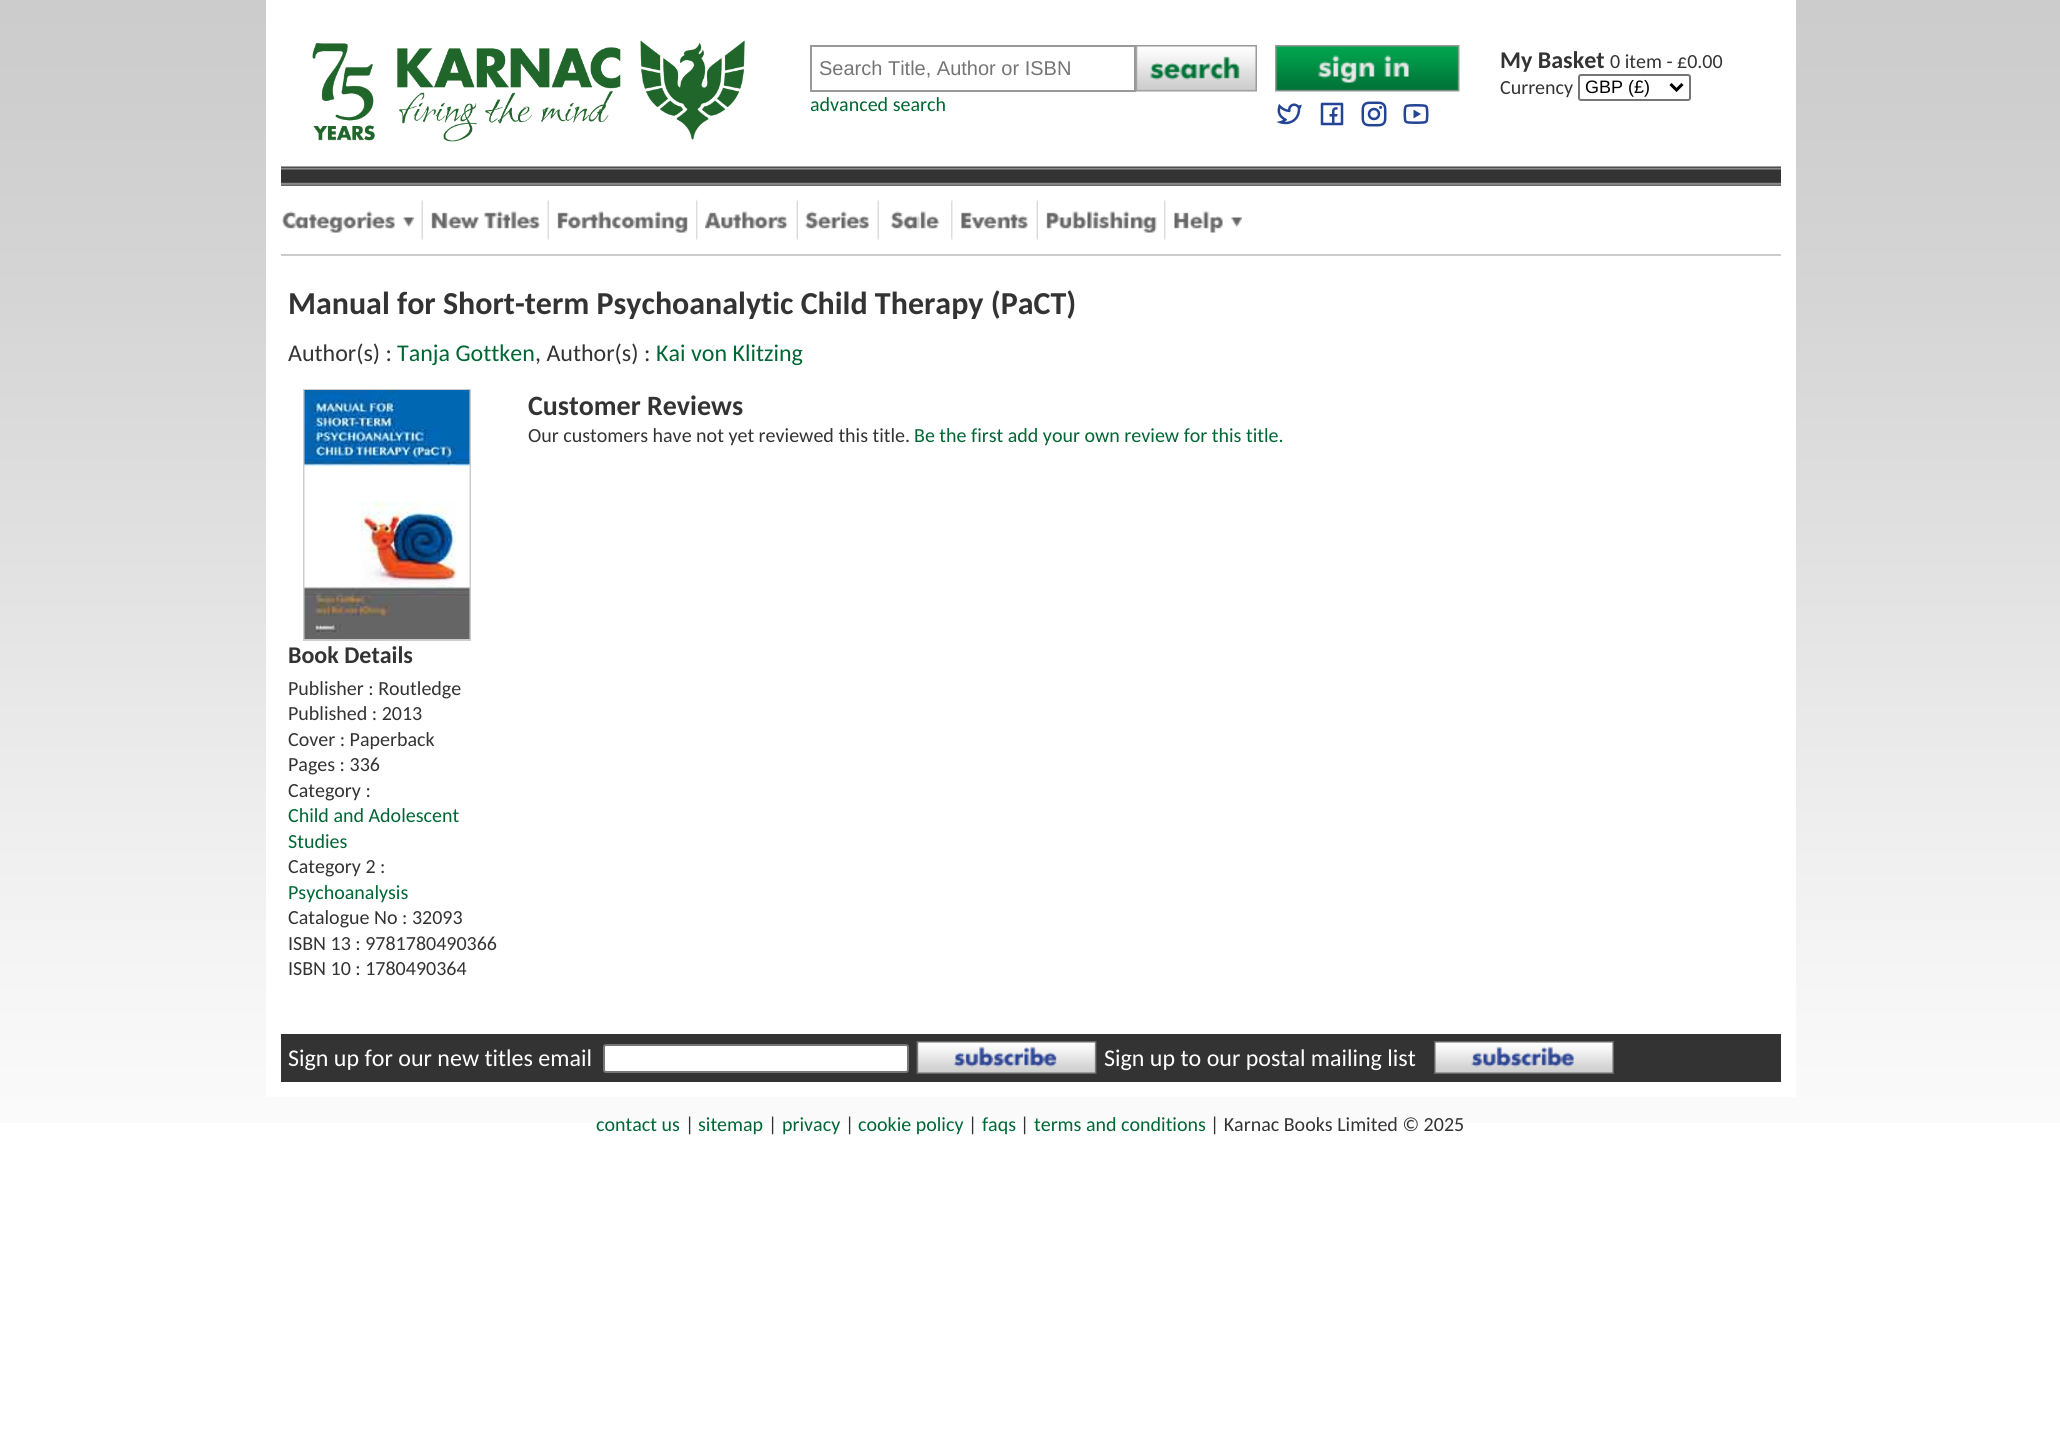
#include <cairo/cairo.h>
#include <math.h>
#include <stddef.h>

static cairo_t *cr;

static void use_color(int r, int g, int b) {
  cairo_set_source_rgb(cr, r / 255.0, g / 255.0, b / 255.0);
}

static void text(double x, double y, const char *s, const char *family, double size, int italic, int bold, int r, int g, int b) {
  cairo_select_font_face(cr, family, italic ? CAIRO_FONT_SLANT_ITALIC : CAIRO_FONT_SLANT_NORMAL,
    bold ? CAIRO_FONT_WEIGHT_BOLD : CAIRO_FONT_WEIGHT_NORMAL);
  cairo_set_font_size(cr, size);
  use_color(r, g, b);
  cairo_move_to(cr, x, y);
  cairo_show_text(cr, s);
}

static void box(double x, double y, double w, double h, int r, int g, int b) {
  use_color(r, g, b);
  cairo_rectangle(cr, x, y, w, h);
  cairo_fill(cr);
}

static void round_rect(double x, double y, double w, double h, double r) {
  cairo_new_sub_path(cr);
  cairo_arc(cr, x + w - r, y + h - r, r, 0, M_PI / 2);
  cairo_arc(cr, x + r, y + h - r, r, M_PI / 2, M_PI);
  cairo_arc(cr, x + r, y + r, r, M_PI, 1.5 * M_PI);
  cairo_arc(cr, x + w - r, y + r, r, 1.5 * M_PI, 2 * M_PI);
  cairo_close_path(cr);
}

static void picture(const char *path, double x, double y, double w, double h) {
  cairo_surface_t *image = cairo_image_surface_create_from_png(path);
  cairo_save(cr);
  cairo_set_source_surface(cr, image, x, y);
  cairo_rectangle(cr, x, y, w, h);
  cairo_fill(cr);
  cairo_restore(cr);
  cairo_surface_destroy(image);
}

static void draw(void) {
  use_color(255, 255, 255);
  cairo_paint(cr);
  picture("img_01.png", 0, 0, 2060, 1123);
  box(266, 0, 1530, 1097, 255, 255, 255);
  picture("img_02.png", 312, 40, 433, 102);
  cairo_rectangle(cr, 811, 46, 324, 45);
  use_color(153, 153, 153);
  cairo_stroke(cr);
  picture("img_03.png", 1136, 45, 121, 47);
  picture("img_04.png", 1275, 45, 185, 47);
  picture("img_05.png", 1276, 103, 26, 22);
  picture("img_06.png", 1320, 102, 24, 24);
  picture("img_07.png", 1361, 101, 26, 26);
  picture("img_08.png", 1403, 104, 26, 20);
  round_rect(1579, 75, 111, 25, 2);
  use_color(118, 118, 118);
  cairo_stroke(cr);
  cairo_new_path(cr);
  cairo_move_to(cr, 1670.5, 84);
  cairo_line_to(cr, 1676.5, 90);
  cairo_line_to(cr, 1682.5, 84);
  use_color(0, 0, 0);
  cairo_set_line_width(cr, 3);
  cairo_stroke(cr);
  picture("img_09.png", 281, 166, 1500, 20);
  box(281, 254, 1500, 2, 204, 204, 204);
  picture("img_10.png", 282, 211, 132, 22);
  picture("img_11.png", 421, 199, 2, 41);
  picture("img_12.png", 431, 211, 109, 18);
  picture("img_11.png", 547, 199, 2, 41);
  picture("img_13.png", 557, 211, 131, 22);
  picture("img_14.png", 696, 199, 2, 41);
  picture("img_15.png", 705, 211, 83, 18);
  picture("img_11.png", 796, 199, 2, 41);
  picture("img_16.png", 805, 211, 64, 18);
  picture("img_11.png", 877, 199, 2, 41);
  picture("img_17.png", 890, 211, 50, 19);
  picture("img_14.png", 951, 199, 2, 41);
  picture("img_18.png", 961, 212, 67, 17);
  picture("img_11.png", 1036, 199, 2, 41);
  picture("img_19.png", 1046, 211, 111, 22);
  picture("img_14.png", 1164, 199, 2, 41);
  picture("img_20.png", 1174, 211, 68, 22);
  cairo_rectangle(cr, 304, 390, 166, 250);
  cairo_set_line_width(cr, 2);
  cairo_stroke(cr);
  picture("img_21.png", 304, 390, 166, 249);
  box(281, 1034, 1500, 48, 51, 51, 51);
  use_color(255, 255, 255);
  round_rect(604, 1045, 304, 27, 2);
  cairo_fill_preserve(cr);
  use_color(118, 118, 118);
  cairo_stroke(cr);
  picture("img_22.png", 916, 1041, 181, 33);
  picture("img_23.png", 1434, 1041, 180, 33);
  text(819, 75, "Search Title, Author or ISBN", "Liberation Sans", 20, 0, 0, 117, 117, 117);
  text(810, 111, "advanced search", "Carlito", 20, 0, 0, 0, 102, 51);
  text(1500, 68, "My Basket", "Carlito", 24, 0, 1, 51, 51, 51);
  text(1610, 68, "0 item - £0.00", "Carlito", 20, 0, 0, 51, 51, 51);
  text(1500, 94, "Currency", "Carlito", 20, 0, 0, 51, 51, 51);
  text(1585, 93, "GBP (£)", "Liberation Sans", 18, 0, 0, 0, 0, 0);
  text(288, 314, "Manual for Short-term Psychoanalytic Child Therapy (PaCT)", "Carlito", 32, 0, 1, 51, 51, 51);
  text(288, 361, "Author(s) :", "Carlito", 24, 0, 0, 51, 51, 51);
  text(397, 361, "Tanja Gottken", "Carlito", 24, 0, 0, 0, 102, 51);
  text(535, 361, ", Author(s) :", "Carlito", 24, 0, 0, 51, 51, 51);
  text(656, 361, "Kai von Klitzing", "Carlito", 24, 0, 0, 0, 102, 51);
  text(528, 415, "Customer Reviews", "Carlito", 28, 0, 1, 51, 51, 51);
  text(528, 442, "Our customers have not yet reviewed this title.", "Carlito", 20, 0, 0, 51, 51, 51);
  text(914, 442, "Be the first add your own review for this title.", "Carlito", 20, 0, 0, 0, 102, 51);
  text(288, 663, "Book Details", "Carlito", 24, 0, 1, 51, 51, 51);
  text(288, 695, "Publisher : Routledge", "Carlito", 20, 0, 0, 51, 51, 51);
  text(288, 720, "Published : 2013", "Carlito", 20, 0, 0, 51, 51, 51);
  text(288, 746, "Cover : Paperback", "Carlito", 20, 0, 0, 51, 51, 51);
  text(288, 771, "Pages : 336", "Carlito", 20, 0, 0, 51, 51, 51);
  text(288, 797, "Category :", "Carlito", 20, 0, 0, 51, 51, 51);
  text(288, 822, "Child and Adolescent", "Carlito", 20, 0, 0, 0, 102, 51);
  text(288, 848, "Studies", "Carlito", 20, 0, 0, 0, 102, 51);
  text(288, 873, "Category 2 :", "Carlito", 20, 0, 0, 51, 51, 51);
  text(288, 899, "Psychoanalysis", "Carlito", 20, 0, 0, 0, 102, 51);
  text(288, 924, "Catalogue No : 32093", "Carlito", 20, 0, 0, 51, 51, 51);
  text(288, 950, "ISBN 13 : 9781780490366", "Carlito", 20, 0, 0, 51, 51, 51);
  text(288, 975, "ISBN 10 : 1780490364", "Carlito", 20, 0, 0, 51, 51, 51);
  text(288, 1066, "Sign up for our new titles email", "Carlito", 24, 0, 0, 255, 255, 255);
  text(1104, 1066, "Sign up to our postal mailing list", "Carlito", 24, 0, 0, 255, 255, 255);
  text(596, 1131, "contact us", "Carlito", 20, 0, 0, 0, 102, 51);
  text(685, 1131, "|", "Carlito", 20, 0, 0, 51, 51, 51);
  text(698, 1131, "sitemap", "Carlito", 20, 0, 0, 0, 102, 51);
  text(768, 1131, "|", "Carlito", 20, 0, 0, 51, 51, 51);
  text(782, 1131, "privacy", "Carlito", 20, 0, 0, 0, 102, 51);
  text(845, 1131, "|", "Carlito", 20, 0, 0, 51, 51, 51);
  text(858, 1131, "cookie policy", "Carlito", 20, 0, 0, 0, 102, 51);
  text(968, 1131, "|", "Carlito", 20, 0, 0, 51, 51, 51);
  text(982, 1131, "faqs", "Carlito", 20, 0, 0, 0, 102, 51);
  text(1020, 1131, "|", "Carlito", 20, 0, 0, 51, 51, 51);
  text(1034, 1131, "terms and conditions", "Carlito", 20, 0, 0, 0, 102, 51);
  text(1210, 1131, "| Karnac Books Limited © 2025", "Carlito", 20, 0, 0, 51, 51, 51);
}

int main(void) {
  cairo_surface_t *surface = cairo_image_surface_create(CAIRO_FORMAT_RGB24, 2060, 1446);
  cr = cairo_create(surface);
  cairo_font_options_t *options = cairo_font_options_create();
  cairo_font_options_set_hint_metrics(options, CAIRO_HINT_METRICS_OFF);
  cairo_font_options_set_hint_style(options, CAIRO_HINT_STYLE_NONE);
  cairo_set_font_options(cr, options);
  cairo_set_miter_limit(cr, 4);
  draw();
  cairo_surface_write_to_png(surface, "out.png");
  cairo_font_options_destroy(options);
  cairo_destroy(cr);
  cairo_surface_destroy(surface);
  return 0;
}
